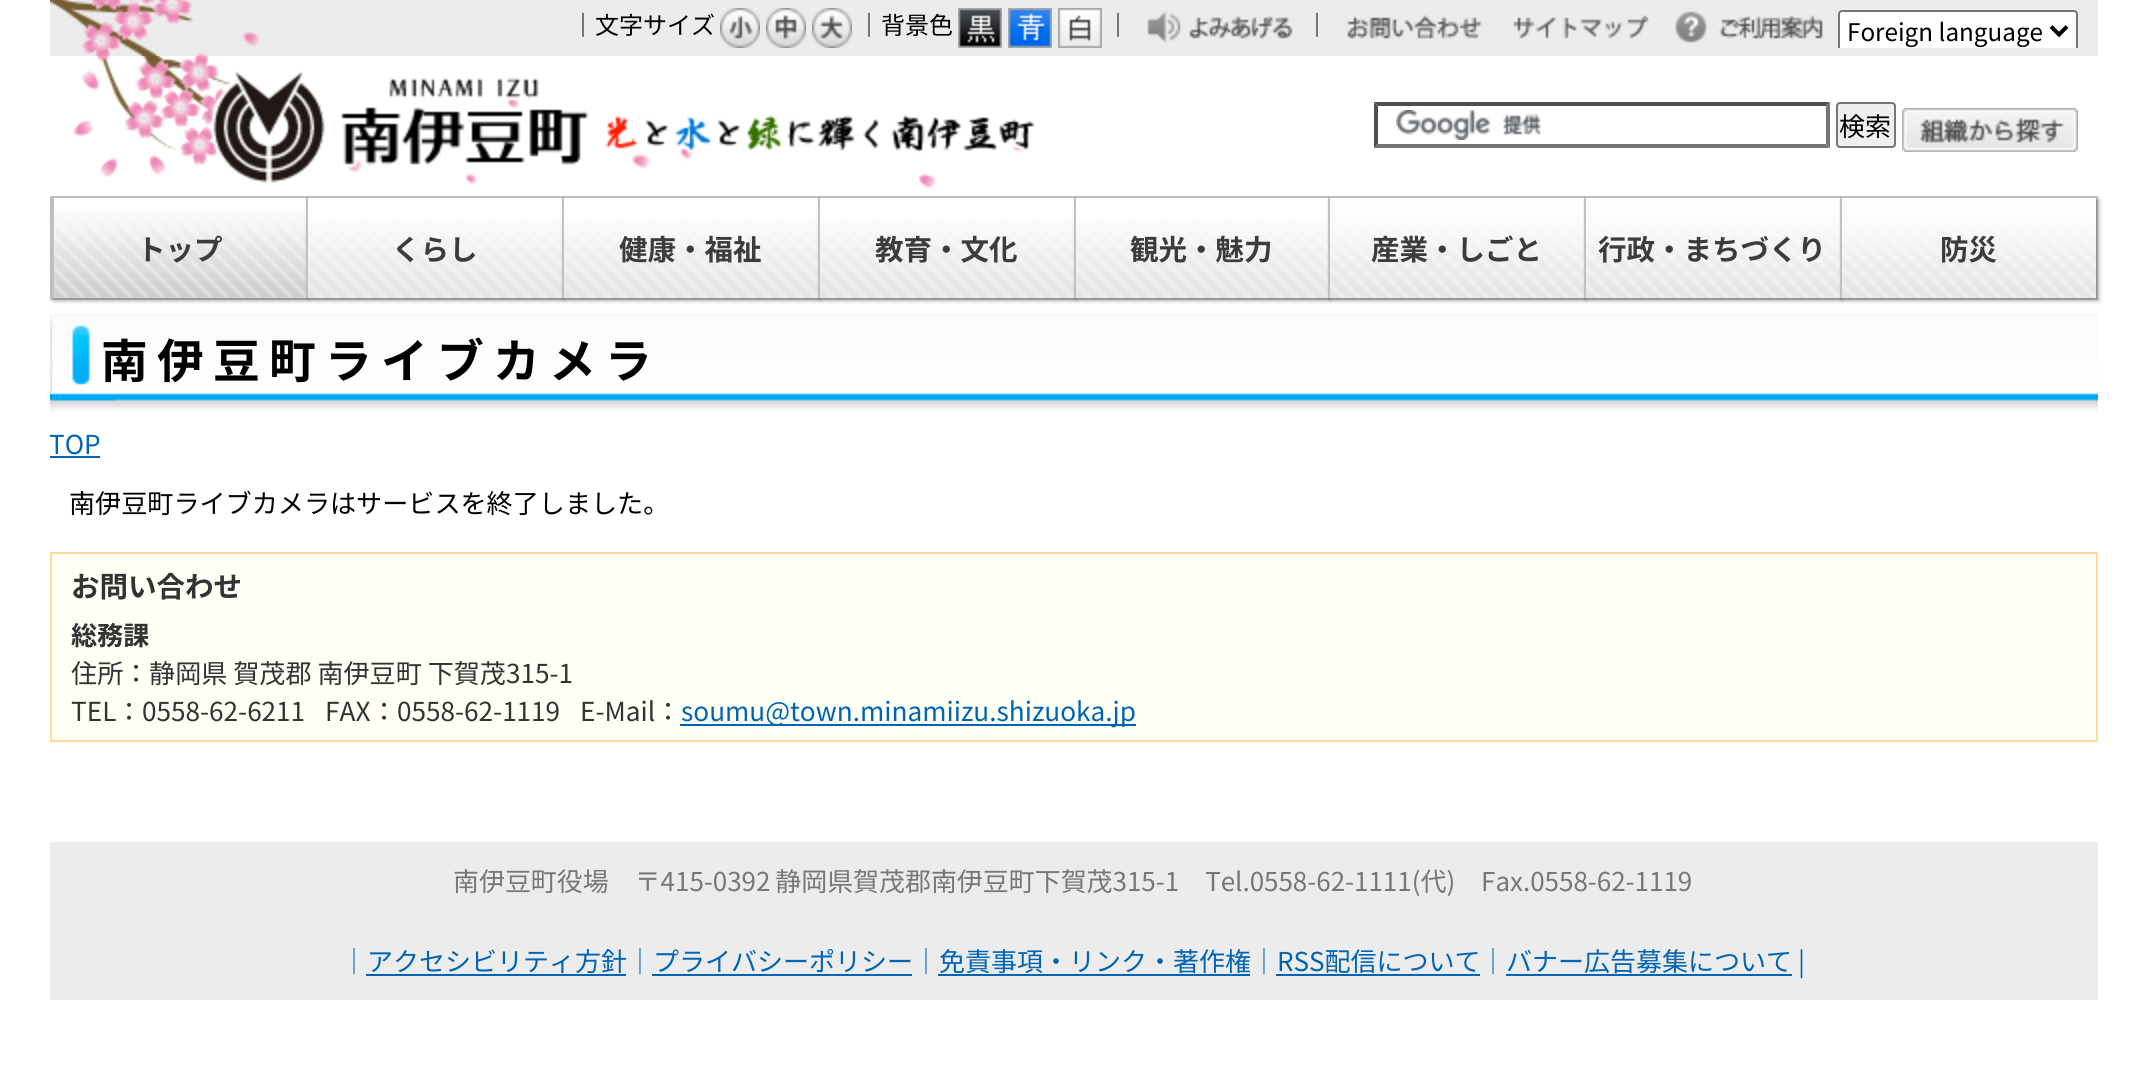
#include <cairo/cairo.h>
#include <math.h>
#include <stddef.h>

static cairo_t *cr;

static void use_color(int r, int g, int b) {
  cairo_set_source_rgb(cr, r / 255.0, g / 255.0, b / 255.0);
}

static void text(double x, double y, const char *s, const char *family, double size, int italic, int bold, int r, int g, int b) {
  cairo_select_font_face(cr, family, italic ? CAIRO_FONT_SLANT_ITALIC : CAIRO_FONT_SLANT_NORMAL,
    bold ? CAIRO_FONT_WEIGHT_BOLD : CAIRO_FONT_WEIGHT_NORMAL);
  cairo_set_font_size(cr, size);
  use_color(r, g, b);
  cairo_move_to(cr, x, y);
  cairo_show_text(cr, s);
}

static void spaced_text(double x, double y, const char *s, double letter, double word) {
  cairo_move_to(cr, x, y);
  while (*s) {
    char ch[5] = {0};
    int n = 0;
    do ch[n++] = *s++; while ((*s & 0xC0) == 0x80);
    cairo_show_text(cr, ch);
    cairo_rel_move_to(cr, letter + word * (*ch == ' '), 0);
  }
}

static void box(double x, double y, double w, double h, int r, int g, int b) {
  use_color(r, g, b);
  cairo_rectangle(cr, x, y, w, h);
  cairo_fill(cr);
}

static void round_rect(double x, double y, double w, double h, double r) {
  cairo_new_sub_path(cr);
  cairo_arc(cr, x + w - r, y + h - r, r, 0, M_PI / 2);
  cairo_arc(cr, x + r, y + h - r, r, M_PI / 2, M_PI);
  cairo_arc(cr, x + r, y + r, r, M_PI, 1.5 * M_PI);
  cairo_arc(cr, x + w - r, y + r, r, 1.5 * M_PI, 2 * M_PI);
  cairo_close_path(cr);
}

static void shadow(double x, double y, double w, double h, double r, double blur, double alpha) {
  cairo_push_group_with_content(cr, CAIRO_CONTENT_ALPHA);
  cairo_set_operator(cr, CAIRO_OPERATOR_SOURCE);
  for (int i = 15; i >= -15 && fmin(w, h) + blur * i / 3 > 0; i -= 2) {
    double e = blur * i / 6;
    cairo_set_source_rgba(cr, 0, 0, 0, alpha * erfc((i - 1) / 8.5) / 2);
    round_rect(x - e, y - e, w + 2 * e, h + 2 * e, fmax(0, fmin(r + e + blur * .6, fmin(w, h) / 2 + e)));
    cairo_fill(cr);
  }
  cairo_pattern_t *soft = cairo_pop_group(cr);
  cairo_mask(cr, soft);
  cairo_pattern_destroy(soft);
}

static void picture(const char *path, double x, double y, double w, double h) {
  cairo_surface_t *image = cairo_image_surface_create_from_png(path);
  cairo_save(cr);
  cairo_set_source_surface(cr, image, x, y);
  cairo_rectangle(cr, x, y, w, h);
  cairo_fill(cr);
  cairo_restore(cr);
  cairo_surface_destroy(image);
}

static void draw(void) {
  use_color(255, 255, 255);
  cairo_paint(cr);
  box(50, 0, 2048, 56, 236, 236, 236);
  picture("img_01.png", 50, 0, 211, 56);
  picture("img_02.png", 720, 8, 40, 40);
  picture("img_03.png", 766, 8, 40, 40);
  picture("img_04.png", 812, 8, 40, 40);
  picture("img_05.png", 958, 8, 44, 40);
  picture("img_06.png", 1008, 8, 44, 40);
  picture("img_07.png", 1058, 8, 44, 40);
  picture("img_08.png", 1147, 11, 146, 32);
  picture("img_09.png", 1347, 15, 136, 24);
  picture("img_10.png", 1513, 15, 136, 24);
  picture("img_11.png", 1675, 11, 148, 32);
  use_color(255, 255, 255);
  cairo_new_path(cr);
  cairo_move_to(cr, 1842, 10);
  cairo_line_to(cr, 2074, 10);
  cairo_curve_to(cr, 2076, 10, 2078, 12, 2078, 14);
  cairo_line_to(cr, 2078, 48);
  cairo_line_to(cr, 1838, 48);
  cairo_line_to(cr, 1838, 14);
  cairo_curve_to(cr, 1838, 12, 1840, 10, 1842, 10);
  cairo_close_path(cr);
  cairo_fill(cr);
  cairo_save(cr);
  cairo_rectangle(cr, 1836, 8, 242, 40);
  cairo_clip(cr);
  round_rect(1839, 11, 238, 40, 3);
  use_color(118, 118, 118);
  cairo_stroke(cr);
  cairo_restore(cr);
  cairo_new_path(cr);
  cairo_move_to(cr, 2051, 26.5);
  cairo_line_to(cr, 2059, 34.5);
  cairo_line_to(cr, 2067, 26.5);
  use_color(0, 0, 0);
  cairo_set_line_width(cr, 4);
  cairo_stroke(cr);
  picture("img_12.png", 73, 56, 962, 133);
  picture("img_13.png", 1396, 110, 146, 30);
  use_color(79, 79, 79);
  cairo_new_path(cr);
  cairo_move_to(cr, 1374, 102);
  cairo_line_to(cr, 1830, 102);
  cairo_line_to(cr, 1826, 106);
  cairo_line_to(cr, 1378, 106);
  cairo_close_path(cr);
  cairo_fill(cr);
  use_color(118, 118, 118);
  cairo_new_path(cr);
  cairo_move_to(cr, 1830, 102);
  cairo_line_to(cr, 1830, 148);
  cairo_line_to(cr, 1826, 144);
  cairo_line_to(cr, 1826, 106);
  cairo_close_path(cr);
  cairo_fill(cr);
  cairo_new_path(cr);
  cairo_move_to(cr, 1830, 148);
  cairo_line_to(cr, 1374, 148);
  cairo_line_to(cr, 1378, 144);
  cairo_line_to(cr, 1826, 144);
  cairo_close_path(cr);
  cairo_fill(cr);
  use_color(79, 79, 79);
  cairo_new_path(cr);
  cairo_move_to(cr, 1374, 148);
  cairo_line_to(cr, 1374, 102);
  cairo_line_to(cr, 1378, 106);
  cairo_line_to(cr, 1378, 144);
  cairo_close_path(cr);
  cairo_fill(cr);
  use_color(239, 239, 239);
  round_rect(1837, 103, 58, 44, 3);
  cairo_fill_preserve(cr);
  use_color(118, 118, 118);
  cairo_set_line_width(cr, 2);
  cairo_stroke(cr);
  picture("img_14.png", 1902, 108, 176, 44);
  cairo_save(cr);
  cairo_set_fill_rule(cr, CAIRO_FILL_RULE_EVEN_ODD);
  cairo_new_path(cr);
  cairo_move_to(cr, 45, 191);
  cairo_line_to(cr, 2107, 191);
  cairo_line_to(cr, 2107, 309);
  cairo_line_to(cr, 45, 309);
  cairo_close_path(cr);
  cairo_move_to(cr, 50, 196);
  cairo_line_to(cr, 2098, 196);
  cairo_line_to(cr, 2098, 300);
  cairo_line_to(cr, 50, 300);
  cairo_close_path(cr);
  cairo_clip(cr);
  use_color(0, 0, 0);
  shadow(52, 198, 2048, 104, 0, 2, 0.1);
  cairo_restore(cr);
  picture("img_15.png", 311, 220, 1017, 78);
  cairo_rectangle(cr, 51, 197, 2046, 102);
  use_color(193, 193, 193);
  cairo_stroke(cr);
  cairo_save(cr);
  cairo_set_fill_rule(cr, CAIRO_FILL_RULE_EVEN_ODD);
  cairo_new_path(cr);
  cairo_move_to(cr, 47, 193);
  cairo_line_to(cr, 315, 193);
  cairo_line_to(cr, 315, 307);
  cairo_line_to(cr, 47, 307);
  cairo_close_path(cr);
  cairo_move_to(cr, 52, 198);
  cairo_line_to(cr, 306, 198);
  cairo_line_to(cr, 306, 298);
  cairo_line_to(cr, 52, 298);
  cairo_close_path(cr);
  cairo_clip(cr);
  use_color(0, 0, 0);
  shadow(54, 200, 254, 100, 0, 2, 0.3);
  cairo_restore(cr);
  picture("img_16.png", 54, 212, 252, 86);
  box(52, 198, 2, 100, 193, 193, 193);
  cairo_save(cr);
  cairo_set_fill_rule(cr, CAIRO_FILL_RULE_EVEN_ODD);
  cairo_new_path(cr);
  cairo_move_to(cr, 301, 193);
  cairo_line_to(cr, 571, 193);
  cairo_line_to(cr, 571, 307);
  cairo_line_to(cr, 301, 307);
  cairo_close_path(cr);
  cairo_move_to(cr, 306, 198);
  cairo_line_to(cr, 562, 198);
  cairo_line_to(cr, 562, 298);
  cairo_line_to(cr, 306, 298);
  cairo_close_path(cr);
  cairo_clip(cr);
  use_color(0, 0, 0);
  shadow(308, 200, 256, 100, 0, 2, 0.3);
  cairo_restore(cr);
  picture("img_17.png", 308, 198, 3, 100);
  box(306, 198, 2, 100, 193, 193, 193);
  cairo_save(cr);
  cairo_set_fill_rule(cr, CAIRO_FILL_RULE_EVEN_ODD);
  cairo_new_path(cr);
  cairo_move_to(cr, 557, 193);
  cairo_line_to(cr, 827, 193);
  cairo_line_to(cr, 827, 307);
  cairo_line_to(cr, 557, 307);
  cairo_close_path(cr);
  cairo_move_to(cr, 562, 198);
  cairo_line_to(cr, 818, 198);
  cairo_line_to(cr, 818, 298);
  cairo_line_to(cr, 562, 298);
  cairo_close_path(cr);
  cairo_clip(cr);
  use_color(0, 0, 0);
  shadow(564, 200, 256, 100, 0, 2, 0.3);
  cairo_restore(cr);
  picture("img_17.png", 564, 198, 3, 100);
  box(562, 198, 2, 100, 193, 193, 193);
  cairo_save(cr);
  cairo_set_fill_rule(cr, CAIRO_FILL_RULE_EVEN_ODD);
  cairo_new_path(cr);
  cairo_move_to(cr, 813, 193);
  cairo_line_to(cr, 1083, 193);
  cairo_line_to(cr, 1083, 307);
  cairo_line_to(cr, 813, 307);
  cairo_close_path(cr);
  cairo_move_to(cr, 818, 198);
  cairo_line_to(cr, 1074, 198);
  cairo_line_to(cr, 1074, 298);
  cairo_line_to(cr, 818, 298);
  cairo_close_path(cr);
  cairo_clip(cr);
  use_color(0, 0, 0);
  shadow(820, 200, 256, 100, 0, 2, 0.3);
  cairo_restore(cr);
  picture("img_17.png", 820, 198, 3, 100);
  box(818, 198, 2, 100, 193, 193, 193);
  cairo_save(cr);
  cairo_set_fill_rule(cr, CAIRO_FILL_RULE_EVEN_ODD);
  cairo_new_path(cr);
  cairo_move_to(cr, 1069, 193);
  cairo_line_to(cr, 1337, 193);
  cairo_line_to(cr, 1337, 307);
  cairo_line_to(cr, 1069, 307);
  cairo_close_path(cr);
  cairo_move_to(cr, 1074, 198);
  cairo_line_to(cr, 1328, 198);
  cairo_line_to(cr, 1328, 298);
  cairo_line_to(cr, 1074, 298);
  cairo_close_path(cr);
  cairo_clip(cr);
  use_color(0, 0, 0);
  shadow(1076, 200, 254, 100, 0, 2, 0.3);
  cairo_restore(cr);
  picture("img_17.png", 1076, 198, 3, 100);
  box(1074, 198, 2, 100, 193, 193, 193);
  use_color(0, 0, 0);
  shadow(1330, 200, 256, 100, 0, 2, 0.3);
  picture("img_18.png", 1330, 198, 254, 100);
  box(1328, 198, 2, 100, 193, 193, 193);
  use_color(0, 0, 0);
  shadow(1586, 200, 256, 100, 0, 2, 0.3);
  picture("img_18.png", 1586, 198, 254, 100);
  box(1584, 198, 2, 100, 193, 193, 193);
  use_color(0, 0, 0);
  shadow(1842, 200, 256, 100, 0, 2, 0.3);
  picture("img_18.png", 1842, 198, 254, 100);
  box(1840, 198, 2, 100, 193, 193, 193);
  picture("img_19.png", 50, 314, 2048, 98);
  picture("img_20.png", 50, 316, 66, 85);
  box(50, 456, 50, 2, 0, 100, 181);
  use_color(254, 255, 245);
  cairo_rectangle(cr, 51, 553, 2046, 188);
  cairo_fill_preserve(cr);
  use_color(255, 217, 150);
  cairo_stroke(cr);
  box(680, 724, 456, 2, 0, 100, 181);
  box(50, 842, 2048, 158, 236, 236, 236);
  box(366, 974, 260, 2, 0, 100, 181);
  box(652, 974, 260, 2, 0, 100, 181);
  box(938, 974, 312, 2, 0, 100, 181);
  box(1276, 974, 204, 2, 0, 100, 181);
  box(1506, 974, 286, 2, 0, 100, 181);
  text(571, 34, "｜文字サイズ", "Noto Sans JP", 24, 0, 0, 0, 0, 0);
  text(857, 34, "｜背景色", "Noto Sans JP", 24, 0, 0, 0, 0, 0);
  text(1106, 34, "｜", "Noto Sans JP", 24, 0, 0, 0, 0, 0);
  text(1305, 34, "｜", "Noto Sans JP", 24, 0, 0, 0, 0, 0);
  text(1847, 41, "Foreign language", "Noto Sans JP", 24.25, 0, 0, 0, 0, 0);
  text(1839, 136, "検索", "Noto Sans JP", 26, 0, 0, 0, 0, 0);
  text(137, 260, "トップ", "Noto Sans JP", 28.5, 0, 1, 60, 60, 60);
  text(392, 260, "くらし", "Noto Sans JP", 28.5, 0, 1, 60, 60, 60);
  text(619, 260, "健康・福祉", "Noto Sans JP", 28.5, 0, 1, 60, 60, 60);
  text(875, 260, "教育・文化", "Noto Sans JP", 28.5, 0, 1, 60, 60, 60);
  text(1130, 260, "観光・魅力", "Noto Sans JP", 28.5, 0, 1, 60, 60, 60);
  text(1371, 260, "産業・しごと", "Noto Sans JP", 28.5, 0, 1, 60, 60, 60);
  text(1598, 260, "行政・まちづくり", "Noto Sans JP", 28.5, 0, 1, 60, 60, 60);
  text(1940, 260, "防災", "Noto Sans JP", 28.5, 0, 1, 60, 60, 60);
  cairo_set_font_size(cr, 46.75);
  use_color(0, 0, 0);
  spaced_text(101, 378, "南伊豆町ライブカメラ", 9.25, 0);
  text(49, 454, "TOP", "Noto Sans JP", 26.1, 0, 0, 0, 100, 181);
  text(69, 513, "南伊豆町ライブカメラはサービスを終了しました。", "Noto Sans JP", 26.1, 0, 0, 0, 0, 0);
  text(71, 597, "お問い合わせ", "Noto Sans JP", 28.5, 0, 1, 51, 51, 51);
  text(71, 645, "総務課", "Noto Sans JP", 26.1, 0, 1, 51, 51, 51);
  text(71, 683, "住所", "Noto Sans JP", 26.2, 0, 0, 51, 51, 51);
  text(123, 683, "：静岡県 賀茂郡 南伊豆町 下賀茂315-1", "Noto Sans JP", 26.1, 0, 0, 51, 51, 51);
  text(71, 721, "TEL", "Noto Sans JP", 26.2, 0, 0, 51, 51, 51);
  text(116, 721, "：0558-62-6211", "Noto Sans JP", 26.1, 0, 0, 51, 51, 51);
  text(325, 721, "FAX", "Noto Sans JP", 26.2, 0, 0, 51, 51, 51);
  text(371, 721, "：0558-62-1119", "Noto Sans JP", 26.1, 0, 0, 51, 51, 51);
  text(580, 721, "E-Mail", "Noto Sans JP", 26.2, 0, 0, 51, 51, 51);
  text(655, 721, "：", "Noto Sans JP", 26.1, 0, 0, 51, 51, 51);
  text(681, 721, "soumu@town.minamiizu.shizuoka.jp", "Noto Sans JP", 26.2, 0, 0, 0, 100, 181);
  cairo_set_font_size(cr, 25.95);
  use_color(119, 119, 119);
  spaced_text(453, 891, "南伊豆町役場　〒415-0392 静岡県賀茂郡南伊豆町下賀茂315-1　Tel.0558-62-1111(代)　Fax.0558-62-1119", 0, -1);
  text(341, 971, "｜", "Noto Sans JP", 25.95, 0, 0, 0, 100, 181);
  text(367, 971, "アクセシビリティ方針", "Noto Sans JP", 26, 0, 0, 0, 100, 181);
  text(627, 971, "｜", "Noto Sans JP", 25.95, 0, 0, 0, 100, 181);
  text(653, 971, "プライバシーポリシー", "Noto Sans JP", 26, 0, 0, 0, 100, 181);
  text(913, 971, "｜", "Noto Sans JP", 25.95, 0, 0, 0, 100, 181);
  text(939, 971, "免責事項・リンク・著作権", "Noto Sans JP", 26, 0, 0, 0, 100, 181);
  text(1251, 971, "｜", "Noto Sans JP", 25.95, 0, 0, 0, 100, 181);
  text(1277, 971, "RSS配信について", "Noto Sans JP", 26, 0, 0, 0, 100, 181);
  text(1480, 971, "｜", "Noto Sans JP", 25.95, 0, 0, 0, 100, 181);
  text(1506, 971, "バナー広告募集について", "Noto Sans JP", 26, 0, 0, 0, 100, 181);
  text(1798, 971, "|", "Noto Sans JP", 25.95, 0, 0, 0, 100, 181);
}

int main(void) {
  cairo_surface_t *surface = cairo_image_surface_create(CAIRO_FORMAT_RGB24, 2145, 1089);
  cr = cairo_create(surface);
  cairo_font_options_t *options = cairo_font_options_create();
  cairo_font_options_set_hint_metrics(options, CAIRO_HINT_METRICS_OFF);
  cairo_font_options_set_hint_style(options, CAIRO_HINT_STYLE_NONE);
  cairo_set_font_options(cr, options);
  cairo_set_miter_limit(cr, 4);
  draw();
  cairo_surface_write_to_png(surface, "out.png");
  cairo_font_options_destroy(options);
  cairo_destroy(cr);
  cairo_surface_destroy(surface);
  return 0;
}
